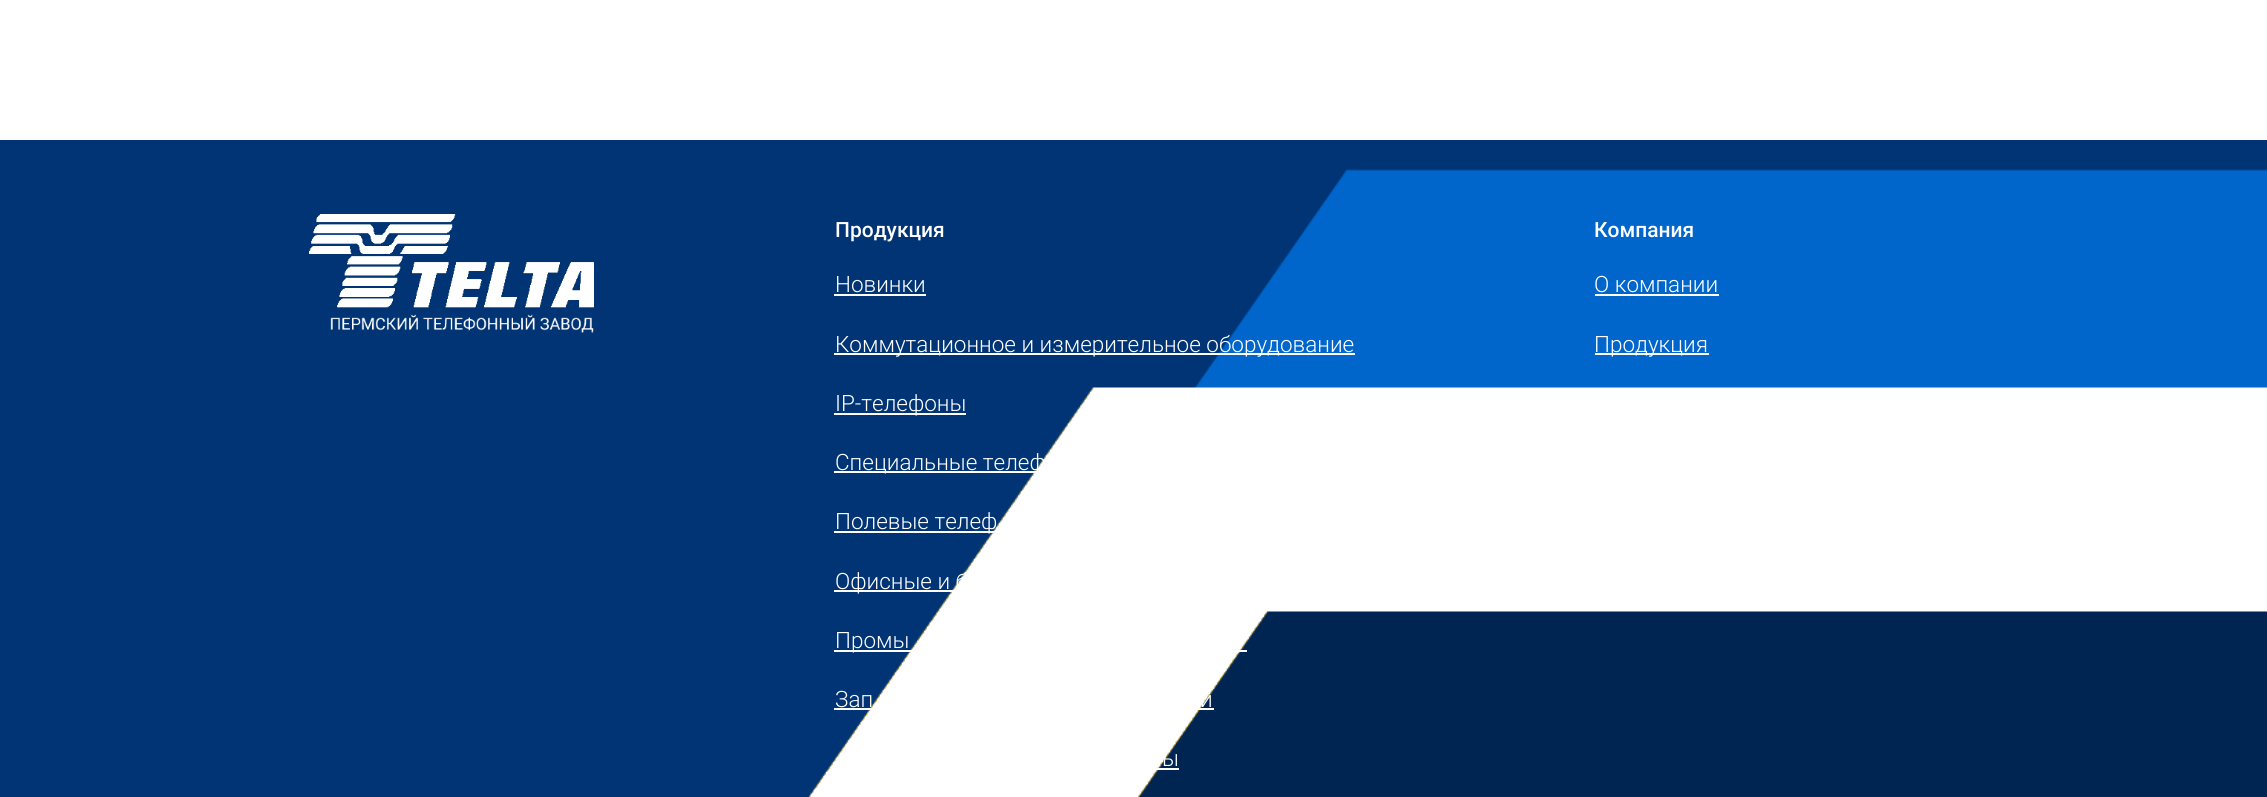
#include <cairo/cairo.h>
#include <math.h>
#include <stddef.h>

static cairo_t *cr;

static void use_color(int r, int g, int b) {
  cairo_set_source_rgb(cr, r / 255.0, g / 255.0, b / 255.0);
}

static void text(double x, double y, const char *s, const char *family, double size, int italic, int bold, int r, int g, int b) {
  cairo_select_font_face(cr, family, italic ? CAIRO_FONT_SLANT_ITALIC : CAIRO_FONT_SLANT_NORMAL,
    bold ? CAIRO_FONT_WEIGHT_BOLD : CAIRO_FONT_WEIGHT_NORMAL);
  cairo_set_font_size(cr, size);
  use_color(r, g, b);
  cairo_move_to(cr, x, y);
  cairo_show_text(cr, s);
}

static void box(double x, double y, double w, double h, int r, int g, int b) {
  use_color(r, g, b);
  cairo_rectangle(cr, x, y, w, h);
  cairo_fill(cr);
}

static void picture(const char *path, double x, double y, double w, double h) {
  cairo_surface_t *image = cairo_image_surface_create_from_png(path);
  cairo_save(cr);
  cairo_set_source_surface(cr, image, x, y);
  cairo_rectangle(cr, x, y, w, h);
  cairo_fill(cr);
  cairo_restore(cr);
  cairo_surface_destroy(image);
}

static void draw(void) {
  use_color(255, 255, 255);
  cairo_paint(cr);
  box(0, 140, 2267, 657, 0, 52, 116);
  picture("img_01.png", 807, 169, 1460, 628);
  picture("img_02.png", 309, 214, 285, 119);
  box(834, 294, 92, 2, 255, 255, 255);
  box(834, 353, 521, 2, 255, 255, 255);
  box(834, 413, 132, 2, 255, 255, 255);
  box(834, 471, 203, 2, 255, 255, 255);
  box(834, 531, 161, 2, 255, 255, 255);
  box(834, 590, 120, 2, 255, 255, 255);
  box(834, 650, 413, 2, 255, 255, 255);
  box(834, 708, 380, 2, 255, 255, 255);
  box(1156, 768, 23, 2, 255, 255, 255);
  box(1595, 294, 124, 2, 255, 255, 255);
  box(1595, 353, 114, 2, 255, 255, 255);
  text(835, 237, "Продукция", "Roboto Medium", 21, 0, 0, 255, 255, 255);
  text(835, 292, "Новинки", "Roboto Light", 22.5, 0, 0, 255, 255, 255);
  text(835, 352, "Коммутационное и измерительное оборудование", "Roboto Light", 22.5, 0, 0, 255, 255, 255);
  text(835, 411, "IP-телефоны", "Roboto Light", 22.5, 0, 0, 255, 255, 255);
  text(835, 470, "Специальные телеф", "Roboto Light", 22.5, 0, 0, 255, 255, 255);
  text(835, 529, "Полевые телеф", "Roboto Light", 22.5, 0, 0, 255, 255, 255);
  text(835, 589, "Офисные и б", "Roboto Light", 22.5, 0, 0, 255, 255, 255);
  text(835, 648, "Промы", "Roboto Light", 22.5, 0, 0, 255, 255, 255);
  text(835, 707, "Зап", "Roboto Light", 22.5, 0, 0, 255, 255, 255);
  text(1200, 707, "и", "Roboto Light", 22.5, 0, 0, 255, 255, 255);
  text(1162, 766, "ы", "Roboto Light", 22.5, 0, 0, 255, 255, 255);
  text(1594, 237, "Компания", "Roboto Medium", 21, 0, 0, 255, 255, 255);
  text(1594, 292, "О компании", "Roboto Light", 22.5, 0, 0, 255, 255, 255);
  text(1594, 352, "Продукция", "Roboto Light", 22.5, 0, 0, 255, 255, 255);
}

int main(void) {
  cairo_surface_t *surface = cairo_image_surface_create(CAIRO_FORMAT_RGB24, 2267, 797);
  cr = cairo_create(surface);
  cairo_font_options_t *options = cairo_font_options_create();
  cairo_font_options_set_hint_metrics(options, CAIRO_HINT_METRICS_OFF);
  cairo_font_options_set_hint_style(options, CAIRO_HINT_STYLE_NONE);
  cairo_set_font_options(cr, options);
  cairo_set_miter_limit(cr, 4);
  draw();
  cairo_surface_write_to_png(surface, "out.png");
  cairo_font_options_destroy(options);
  cairo_destroy(cr);
  cairo_surface_destroy(surface);
  return 0;
}
